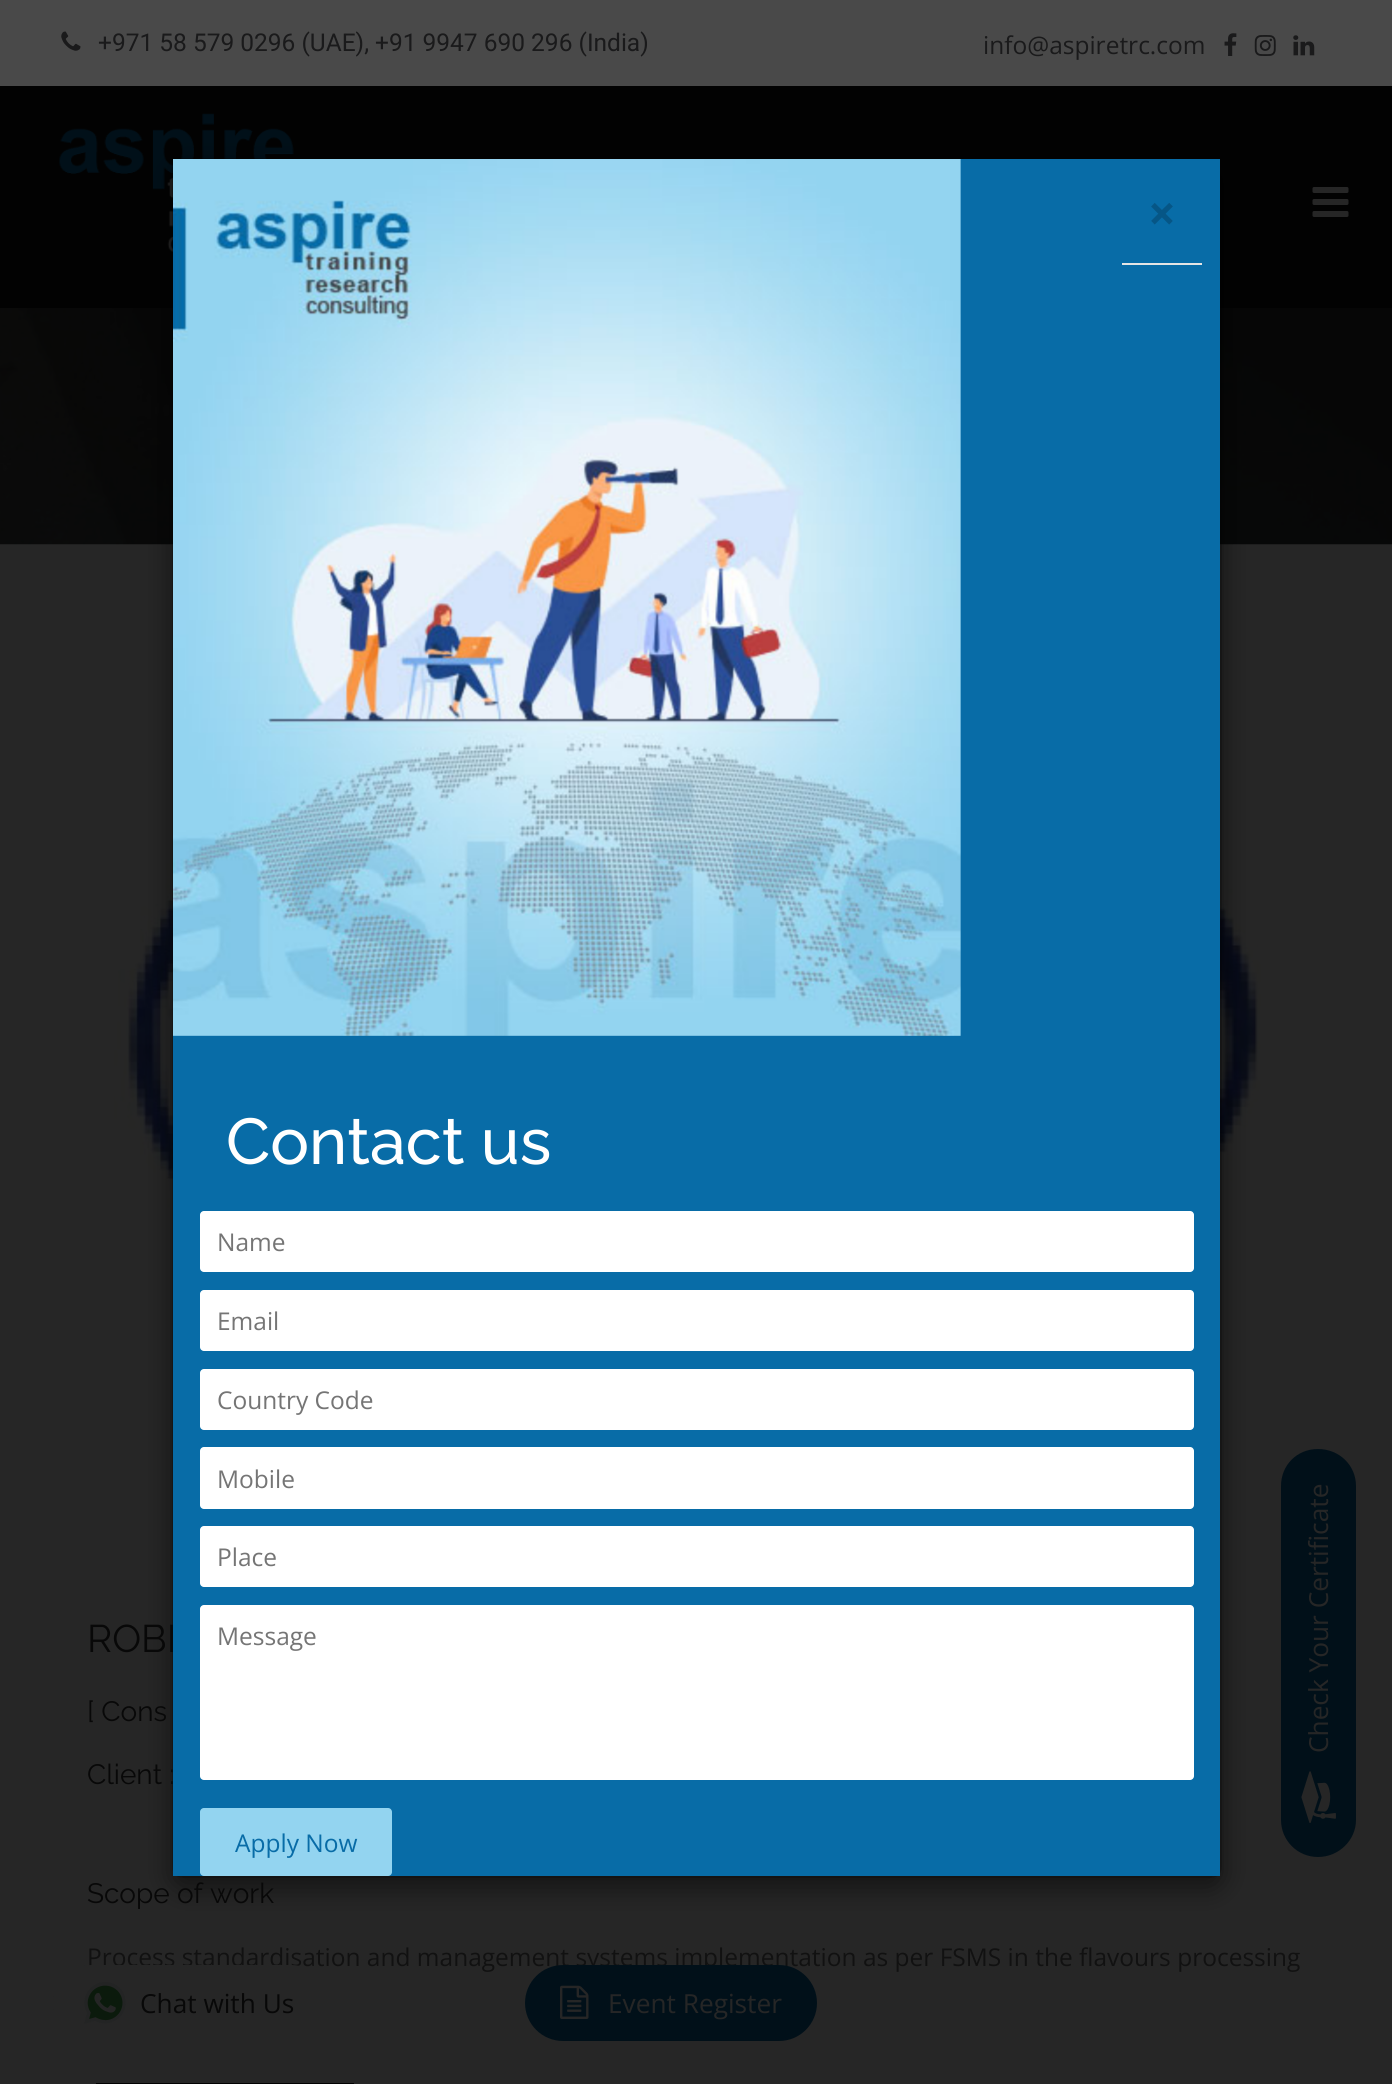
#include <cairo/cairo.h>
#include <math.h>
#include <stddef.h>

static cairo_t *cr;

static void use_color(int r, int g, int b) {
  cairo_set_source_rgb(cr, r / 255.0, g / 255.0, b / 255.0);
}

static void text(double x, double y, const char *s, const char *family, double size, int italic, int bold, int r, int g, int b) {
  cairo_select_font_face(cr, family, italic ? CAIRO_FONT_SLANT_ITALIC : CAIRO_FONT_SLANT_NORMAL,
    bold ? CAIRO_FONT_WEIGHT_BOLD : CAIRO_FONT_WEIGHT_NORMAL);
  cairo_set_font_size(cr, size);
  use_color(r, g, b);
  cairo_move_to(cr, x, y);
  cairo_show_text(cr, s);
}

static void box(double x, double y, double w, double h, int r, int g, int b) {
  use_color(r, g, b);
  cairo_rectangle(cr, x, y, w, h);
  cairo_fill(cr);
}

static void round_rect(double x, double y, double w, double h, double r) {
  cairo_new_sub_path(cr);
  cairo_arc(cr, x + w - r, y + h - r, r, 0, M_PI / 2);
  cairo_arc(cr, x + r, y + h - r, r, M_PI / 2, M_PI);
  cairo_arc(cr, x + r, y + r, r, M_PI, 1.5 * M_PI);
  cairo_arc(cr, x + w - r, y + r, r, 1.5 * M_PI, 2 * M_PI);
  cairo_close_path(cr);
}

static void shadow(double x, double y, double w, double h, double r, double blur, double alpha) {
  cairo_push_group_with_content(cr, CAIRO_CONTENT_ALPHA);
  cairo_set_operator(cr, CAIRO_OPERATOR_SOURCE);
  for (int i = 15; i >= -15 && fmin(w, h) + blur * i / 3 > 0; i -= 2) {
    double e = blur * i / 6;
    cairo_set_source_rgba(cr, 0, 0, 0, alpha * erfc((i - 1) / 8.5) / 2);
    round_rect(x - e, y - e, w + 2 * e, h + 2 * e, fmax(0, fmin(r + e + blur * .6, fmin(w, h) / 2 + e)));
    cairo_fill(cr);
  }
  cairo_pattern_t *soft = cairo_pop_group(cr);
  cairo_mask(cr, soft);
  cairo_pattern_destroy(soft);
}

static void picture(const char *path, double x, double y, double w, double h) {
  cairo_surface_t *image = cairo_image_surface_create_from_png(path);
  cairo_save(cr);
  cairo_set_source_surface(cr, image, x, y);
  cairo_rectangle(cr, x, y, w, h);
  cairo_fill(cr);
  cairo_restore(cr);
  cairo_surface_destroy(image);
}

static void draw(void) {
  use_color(38, 38, 38);
  cairo_paint(cr);
  box(0, 0, 1392, 86, 73, 73, 73);
  picture("img_01.png", 61, 31, 20, 20);
  picture("img_02.png", 1224, 33, 13, 23);
  picture("img_03.png", 1254, 35, 22, 21);
  picture("img_04.png", 1293, 35, 22, 21);
  box(0, 86, 1392, 222, 2, 2, 2);
  picture("img_05.png", 59, 113, 235, 139);
  picture("img_06.png", 1312, 187, 37, 30);
  picture("img_08.png", 0, 308, 1392, 237);
  picture("img_09.png", 114, 649, 1147, 916);
  use_color(0, 0, 0);
  shadow(172, 166, 1050, 1721, 11, 13, 0.5);
  box(96, 2083, 258, 1, 2, 2, 2);
  use_color(1, 16, 25);
  cairo_new_path(cr);
  cairo_move_to(cr, 1281, 1820);
  cairo_line_to(cr, 1281, 1486);
  cairo_curve_to(cr, 1281, 1465, 1297, 1449, 1318, 1449);
  cairo_curve_to(cr, 1339, 1449, 1356, 1465, 1356, 1486);
  cairo_line_to(cr, 1356, 1820);
  cairo_curve_to(cr, 1356, 1840, 1339, 1857, 1318, 1857);
  cairo_curve_to(cr, 1297, 1857, 1281, 1840, 1281, 1820);
  cairo_close_path(cr);
  cairo_fill(cr);
  picture("img_10.png", 1301, 1771, 35, 52);
  text(98, 51, "+971 58 579 0296 (UAE), +91 9947 690 296 (India)", "Roboto", 24.5, 0, 0, 26, 26, 27);
  text(983, 54, "info@aspiretrc.com", "Open Sans", 24.5, 0, 0, 26, 26, 27);
  text(87, 1652, "ROBI", "Raleway", 38.5, 0, 0, 8, 8, 8);
  text(87, 1721, "[ Cons", "Raleway", 28, 0, 0, 8, 8, 8);
  text(87, 1784, "Client :", "Raleway", 28, 0, 0, 8, 8, 8);
  round_rect(173, 159, 1048, 1718, 10);
  cairo_set_source_rgba(cr, 0, 0, 0, 0.2);
  cairo_stroke(cr);
  box(173, 159, 1047, 1717, 8, 108, 167);
  text(1148, 231, "×", "Open Sans", 49, 0, 1, 6, 86, 134);
  box(1122, 263, 80, 2, 229, 229, 229);
  use_color(147, 212, 240);
  round_rect(200, 1808, 192, 68, 4);
  cairo_fill(cr);
  text(235, 1852, "Apply Now", "Open Sans", 24.5, 0, 0, 8, 108, 167);
  use_color(255, 255, 255);
  round_rect(200, 1605, 994, 175, 4);
  cairo_fill(cr);
  text(217, 1645, "Message", "Open Sans", 24.5, 0, 0, 117, 117, 117);
  use_color(255, 255, 255);
  round_rect(200, 1526, 994, 61, 4);
  cairo_fill(cr);
  text(217, 1566, "Place", "Open Sans", 24.5, 0, 0, 117, 117, 117);
  use_color(255, 255, 255);
  round_rect(200, 1447, 994, 62, 4);
  cairo_fill(cr);
  text(217, 1488, "Mobile", "Open Sans", 24.5, 0, 0, 117, 117, 117);
  use_color(255, 255, 255);
  round_rect(200, 1369, 994, 61, 4);
  cairo_fill(cr);
  text(217, 1409, "Country Code", "Open Sans", 24.5, 0, 0, 117, 117, 117);
  use_color(255, 255, 255);
  round_rect(200, 1290, 994, 61, 4);
  cairo_fill(cr);
  text(217, 1330, "Email", "Open Sans", 24.5, 0, 0, 117, 117, 117);
  use_color(255, 255, 255);
  round_rect(200, 1211, 994, 61, 4);
  cairo_fill(cr);
  text(217, 1251, "Name", "Open Sans", 24.5, 0, 0, 117, 117, 117);
  text(226, 1164, "Contact us", "Raleway Medium", 64.75, 0, 0, 255, 255, 255);
  picture("img_07.png", 173, 159, 788, 877);
  text(87, 1903, "Scope of work", "Raleway", 28, 0, 0, 8, 8, 8);
  text(87, 1966, "Process standardisation and management systems implementation as per FSMS in the flavours processing", "Open Sans", 24.5, 0, 0, 17, 17, 17);
  cairo_save(cr);
  cairo_translate(cr, 1328, 1753);
  cairo_rotate(cr, -90 * M_PI / 180);
  text(0, 0, "Check Your Certificate", "Open Sans", 26.25, 0, 0, 38, 38, 38);
  cairo_restore(cr);
  use_color(38, 38, 38);
  round_rect(53, 1965, 276, 76, 38);
  cairo_fill(cr);
  picture("img_11.png", 84, 1982, 42, 42);
  text(140, 2013, "Chat with Us", "Open Sans", 26.25, 0, 0, 8, 8, 8);
  use_color(1, 16, 25);
  round_rect(525, 1965, 292, 76, 38);
  cairo_fill(cr);
  picture("img_12.png", 560, 1985, 29, 34);
  text(608, 2013, "Event Register", "Open Sans", 26.25, 0, 0, 38, 38, 38);
}

int main(void) {
  cairo_surface_t *surface = cairo_image_surface_create(CAIRO_FORMAT_RGB24, 1392, 2084);
  cr = cairo_create(surface);
  cairo_font_options_t *options = cairo_font_options_create();
  cairo_font_options_set_hint_metrics(options, CAIRO_HINT_METRICS_OFF);
  cairo_font_options_set_hint_style(options, CAIRO_HINT_STYLE_NONE);
  cairo_set_font_options(cr, options);
  cairo_set_miter_limit(cr, 4);
  draw();
  cairo_surface_write_to_png(surface, "out.png");
  cairo_font_options_destroy(options);
  cairo_destroy(cr);
  cairo_surface_destroy(surface);
  return 0;
}
